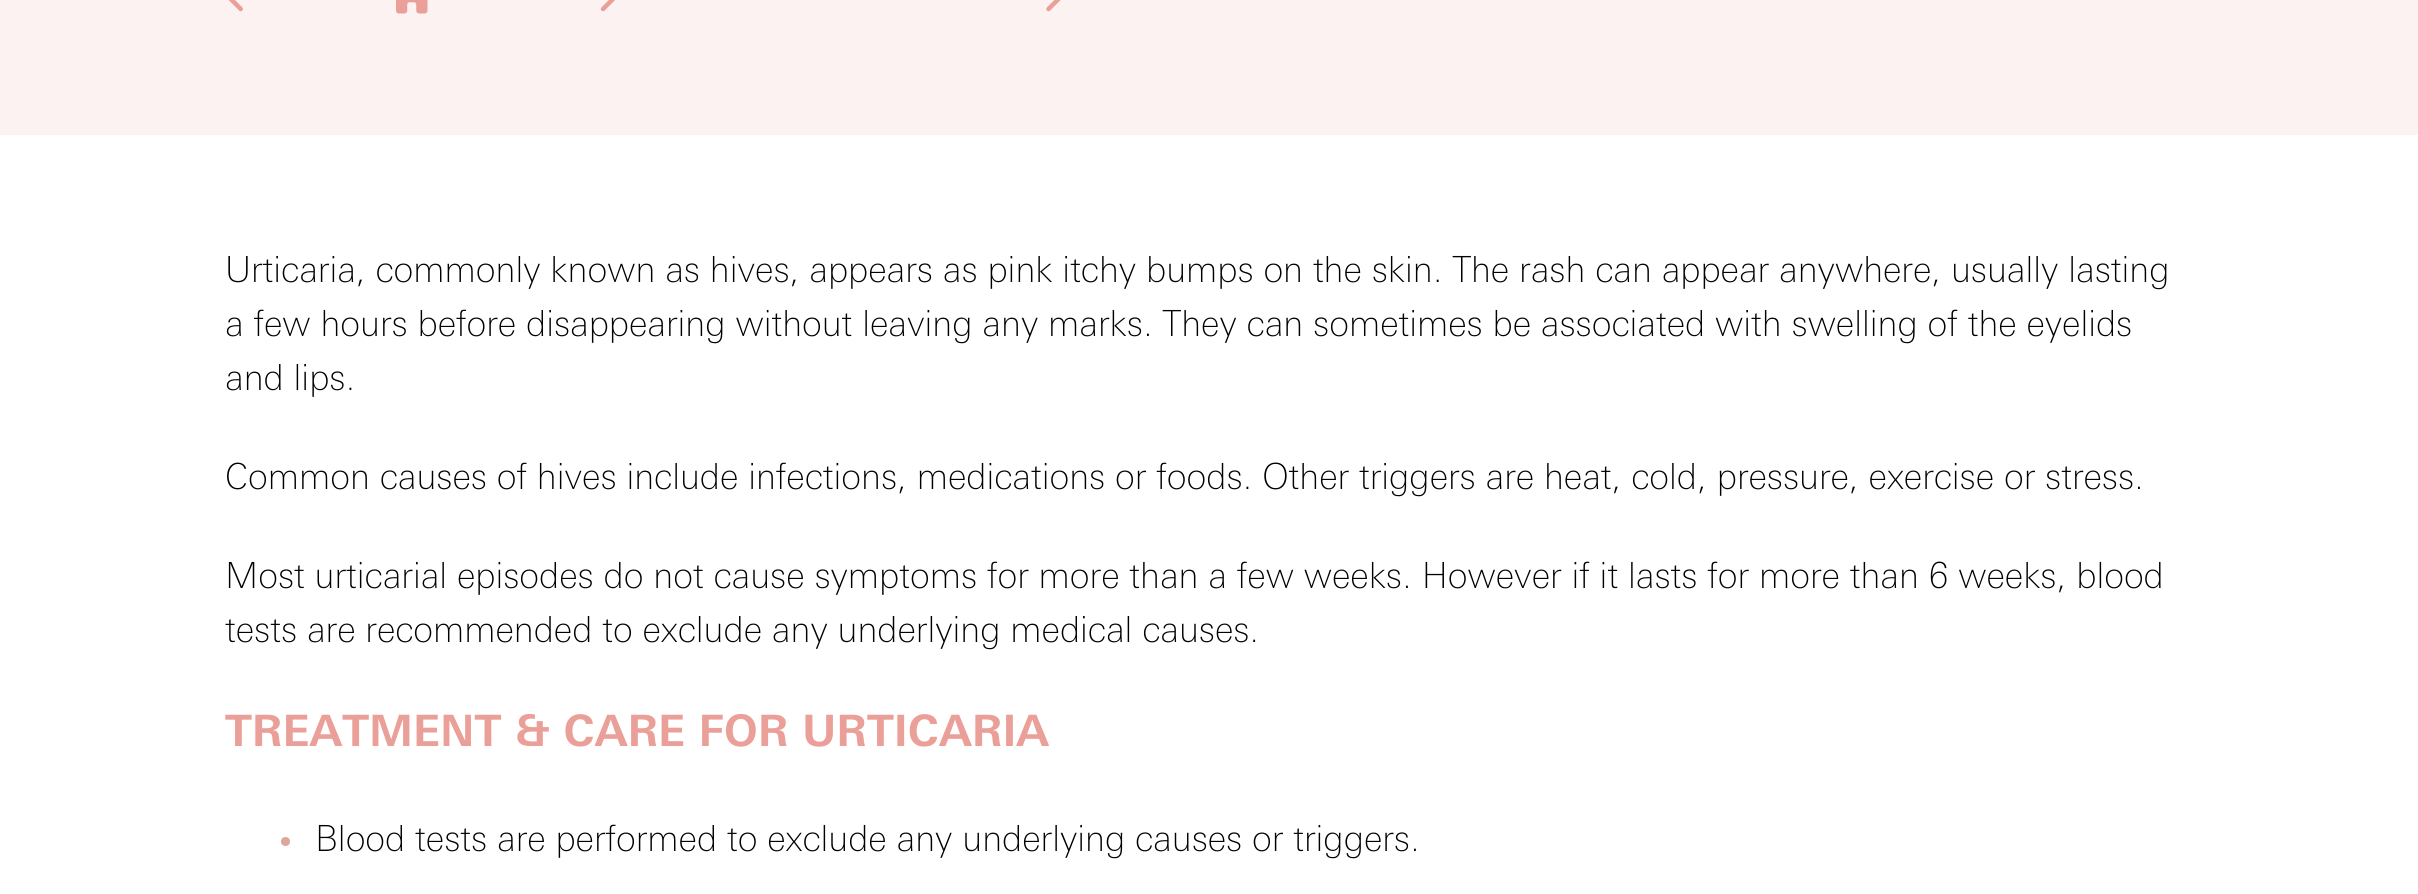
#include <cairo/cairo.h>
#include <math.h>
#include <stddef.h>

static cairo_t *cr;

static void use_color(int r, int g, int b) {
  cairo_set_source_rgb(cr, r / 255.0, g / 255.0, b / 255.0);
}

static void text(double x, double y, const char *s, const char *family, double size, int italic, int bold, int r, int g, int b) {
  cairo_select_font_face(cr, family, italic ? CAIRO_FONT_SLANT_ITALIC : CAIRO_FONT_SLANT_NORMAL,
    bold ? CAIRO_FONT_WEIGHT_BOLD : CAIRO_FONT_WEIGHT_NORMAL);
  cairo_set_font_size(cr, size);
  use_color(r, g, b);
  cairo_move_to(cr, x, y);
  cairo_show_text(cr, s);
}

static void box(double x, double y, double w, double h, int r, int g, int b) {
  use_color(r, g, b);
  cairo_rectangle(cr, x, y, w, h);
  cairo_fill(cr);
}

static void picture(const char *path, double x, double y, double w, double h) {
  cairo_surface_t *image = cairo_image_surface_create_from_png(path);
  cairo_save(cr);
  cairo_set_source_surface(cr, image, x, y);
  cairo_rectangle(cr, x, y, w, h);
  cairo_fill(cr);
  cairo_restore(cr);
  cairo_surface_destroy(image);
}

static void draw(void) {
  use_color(255, 255, 255);
  cairo_paint(cr);
  box(0, 0, 2418, 135, 251, 242, 241);
  picture("img_01.png", 228, 0, 15, 12);
  picture("img_02.png", 396, 0, 32, 14);
  picture("img_03.png", 600, 0, 15, 12);
  picture("img_04.png", 1046, 0, 15, 12);
  use_color(222, 165, 155);
  cairo_arc(cr, 285.5, 841.5, 4.5, 0, 2 * M_PI);
  cairo_fill(cr);
  text(225, 282, "Urticaria, commonly known as hives, appears as pink itchy bumps on the skin. The rash can appear anywhere, usually lasting", "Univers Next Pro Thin", 36, 0, 0, 0, 0, 0);
  text(225, 336, "a few hours before disappearing without leaving any marks. They can sometimes be associated with swelling of the eyelids", "Univers Next Pro Thin", 36, 0, 0, 0, 0, 0);
  text(225, 390, "and lips.", "Univers Next Pro Thin", 36, 0, 0, 0, 0, 0);
  text(225, 489, "Common causes of hives include infections, medications or foods. Other triggers are heat, cold, pressure, exercise or stress.", "Univers Next Pro Thin", 36, 0, 0, 0, 0, 0);
  text(225, 588, "Most urticarial episodes do not cause symptoms for more than a few weeks. However if it lasts for more than 6 weeks, blood", "Univers Next Pro Thin", 36, 0, 0, 0, 0, 0);
  text(225, 642, "tests are recommended to exclude any underlying medical causes.", "Univers Next Pro Thin", 36, 0, 0, 0, 0, 0);
  text(225, 746, "TREATMENT & CARE FOR URTICARIA", "Univers Next Pro", 43.25, 0, 1, 234, 160, 152);
  text(315, 851, "Blood tests are performed to exclude any underlying causes or triggers.", "Univers Next Pro Thin", 36, 0, 0, 0, 0, 0);
}

int main(void) {
  cairo_surface_t *surface = cairo_image_surface_create(CAIRO_FORMAT_RGB24, 2418, 894);
  cr = cairo_create(surface);
  cairo_font_options_t *options = cairo_font_options_create();
  cairo_font_options_set_hint_metrics(options, CAIRO_HINT_METRICS_OFF);
  cairo_font_options_set_hint_style(options, CAIRO_HINT_STYLE_NONE);
  cairo_set_font_options(cr, options);
  cairo_set_miter_limit(cr, 4);
  draw();
  cairo_surface_write_to_png(surface, "out.png");
  cairo_font_options_destroy(options);
  cairo_destroy(cr);
  cairo_surface_destroy(surface);
  return 0;
}
